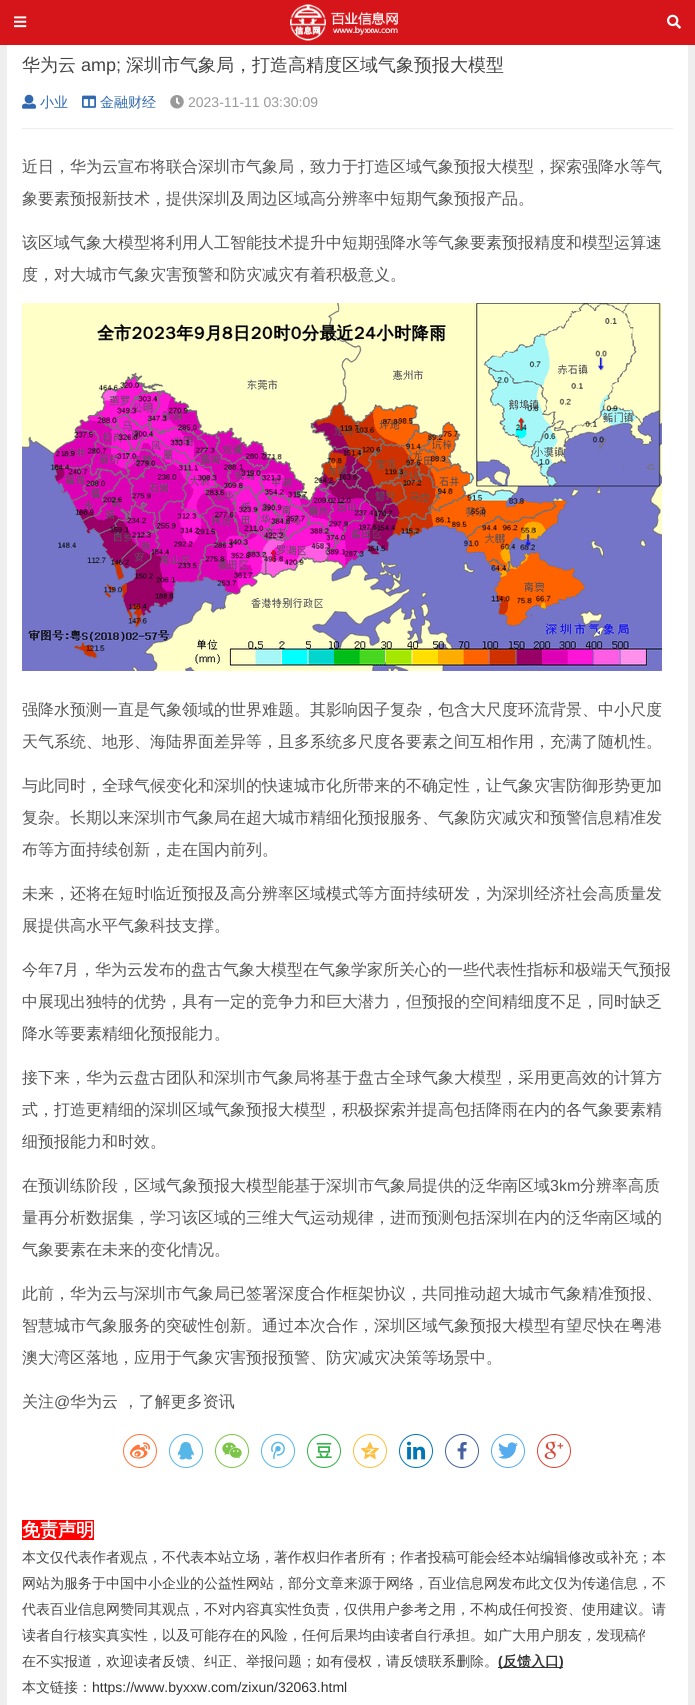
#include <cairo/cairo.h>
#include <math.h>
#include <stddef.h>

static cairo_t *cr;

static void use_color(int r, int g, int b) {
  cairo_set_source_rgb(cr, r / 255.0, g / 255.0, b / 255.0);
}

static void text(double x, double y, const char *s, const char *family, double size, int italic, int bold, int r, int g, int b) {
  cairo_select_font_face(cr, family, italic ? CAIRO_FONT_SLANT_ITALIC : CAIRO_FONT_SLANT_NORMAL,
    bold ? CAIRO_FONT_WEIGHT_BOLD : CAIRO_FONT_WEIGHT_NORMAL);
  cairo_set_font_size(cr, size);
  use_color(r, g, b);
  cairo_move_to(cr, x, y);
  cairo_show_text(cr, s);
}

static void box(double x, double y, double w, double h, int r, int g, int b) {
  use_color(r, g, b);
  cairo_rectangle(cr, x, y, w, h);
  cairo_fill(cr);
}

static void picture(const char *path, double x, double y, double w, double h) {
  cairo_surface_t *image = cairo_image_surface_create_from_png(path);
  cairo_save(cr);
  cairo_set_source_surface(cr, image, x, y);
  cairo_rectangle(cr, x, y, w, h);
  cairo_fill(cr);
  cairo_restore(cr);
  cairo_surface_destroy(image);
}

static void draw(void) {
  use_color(238, 238, 238);
  cairo_paint(cr);
  box(0, 0, 695, 45, 214, 21, 26);
  picture("img_01.png", 14, 16, 13, 12);
  picture("img_02.png", 290, 4, 108, 37);
  picture("img_03.png", 667, 14, 14, 15);
  box(7, 45, 681, 1660, 255, 255, 255);
  box(22, 128, 651, 1, 238, 238, 238);
  picture("img_04.png", 22, 94, 14, 15);
  picture("img_05.png", 82, 95, 14, 13);
  picture("img_06.png", 170, 95, 14, 14);
  picture("img_07.png", 22, 303, 640, 368);
  cairo_arc(cr, 140, 1451, 16.5, 0, 2 * M_PI);
  use_color(255, 118, 59);
  cairo_set_line_width(cr, 1);
  cairo_stroke(cr);
  picture("img_08.png", 130, 1442, 20, 17);
  cairo_arc(cr, 186, 1451, 16.5, 0, 2 * M_PI);
  use_color(86, 182, 231);
  cairo_stroke(cr);
  picture("img_09.png", 177, 1441, 17, 19);
  cairo_arc(cr, 232, 1451, 16.5, 0, 2 * M_PI);
  use_color(123, 197, 73);
  cairo_stroke(cr);
  picture("img_10.png", 222, 1442, 20, 17);
  cairo_arc(cr, 278, 1451, 16.5, 0, 2 * M_PI);
  use_color(86, 182, 231);
  cairo_stroke(cr);
  picture("img_11.png", 271, 1441, 14, 19);
  cairo_arc(cr, 324, 1451, 16.5, 0, 2 * M_PI);
  use_color(51, 176, 69);
  cairo_stroke(cr);
  picture("img_12.png", 316, 1442, 16, 16);
  cairo_arc(cr, 370, 1451, 16.5, 0, 2 * M_PI);
  use_color(253, 190, 61);
  cairo_stroke(cr);
  picture("img_13.png", 360, 1441, 20, 19);
  cairo_arc(cr, 416, 1451, 16.5, 0, 2 * M_PI);
  use_color(0, 119, 181);
  cairo_stroke(cr);
  picture("img_14.png", 407, 1441, 18, 19);
  cairo_arc(cr, 462, 1451, 16.5, 0, 2 * M_PI);
  use_color(68, 97, 157);
  cairo_stroke(cr);
  picture("img_15.png", 457, 1442, 10, 18);
  cairo_arc(cr, 508, 1451, 16.5, 0, 2 * M_PI);
  use_color(85, 172, 238);
  cairo_stroke(cr);
  picture("img_16.png", 498, 1442, 20, 17);
  cairo_arc(cr, 554, 1451, 16.5, 0, 2 * M_PI);
  use_color(219, 68, 55);
  cairo_stroke(cr);
  picture("img_17.png", 544, 1441, 20, 19);
  box(22, 1520, 72, 20, 255, 0, 0);
  box(498, 1667, 65, 1, 51, 51, 51);
  text(22, 71, "华为云", "WenQuanYi Zen Hei Medium", 18, 0, 0, 68, 68, 68);
  text(81, 71, "amp;", "Liberation Sans", 18, 0, 0, 68, 68, 68);
  text(126, 71, "深圳市气象局，打造高精度区域气象预报大模型", "WenQuanYi Zen Hei Medium", 18, 0, 0, 68, 68, 68);
  text(40, 107, "小业", "WenQuanYi Zen Hei Medium", 14, 0, 0, 49, 105, 176);
  text(100, 107, "金融财经", "WenQuanYi Zen Hei Medium", 14, 0, 0, 49, 105, 176);
  text(188, 107, "2023-11-11 03:30:09", "Liberation Sans", 14, 0, 0, 153, 153, 153);
  text(22, 172, "近日，华为云宣布将联合深圳市气象局，致力于打造区域气象预报大模型，探索强降水等气", "WenQuanYi Zen Hei Medium", 16, 0, 0, 85, 85, 85);
  text(22, 204, "象要素预报新技术，提供深圳及周边区域高分辨率中短期气象预报产品。", "WenQuanYi Zen Hei Medium", 16, 0, 0, 85, 85, 85);
  text(22, 248, "该区域气象大模型将利用人工智能技术提升中短期强降水等气象要素预报精度和模型运算速", "WenQuanYi Zen Hei Medium", 16, 0, 0, 85, 85, 85);
  text(22, 280, "度，对大城市气象灾害预警和防灾减灾有着积极意义。", "WenQuanYi Zen Hei Medium", 16, 0, 0, 85, 85, 85);
  text(22, 715, "强降水预测一直是气象领域的世界难题。其影响因子复杂，包含大尺度环流背景、中小尺度", "WenQuanYi Zen Hei Medium", 16, 0, 0, 85, 85, 85);
  text(22, 747, "天气系统、地形、海陆界面差异等，且多系统多尺度各要素之间互相作用，充满了随机性。", "WenQuanYi Zen Hei Medium", 16, 0, 0, 85, 85, 85);
  text(22, 791, "与此同时，全球气候变化和深圳的快速城市化所带来的不确定性，让气象灾害防御形势更加", "WenQuanYi Zen Hei Medium", 16, 0, 0, 85, 85, 85);
  text(22, 823, "复杂。长期以来深圳市气象局在超大城市精细化预报服务、气象防灾减灾和预警信息精准发", "WenQuanYi Zen Hei Medium", 16, 0, 0, 85, 85, 85);
  text(22, 855, "布等方面持续创新，走在国内前列。", "WenQuanYi Zen Hei Medium", 16, 0, 0, 85, 85, 85);
  text(22, 899, "未来，还将在短时临近预报及高分辨率区域模式等方面持续研发，为深圳经济社会高质量发", "WenQuanYi Zen Hei Medium", 16, 0, 0, 85, 85, 85);
  text(22, 931, "展提供高水平气象科技支撑。", "WenQuanYi Zen Hei Medium", 16, 0, 0, 85, 85, 85);
  text(22, 975, "今年", "WenQuanYi Zen Hei Medium", 16, 0, 0, 85, 85, 85);
  text(54, 975, "7", "Liberation Sans", 16, 0, 0, 85, 85, 85);
  text(63, 975, "月，华为云发布的盘古气象大模型在气象学家所关心的一些代表性指标和极端天气预报", "WenQuanYi Zen Hei Medium", 16, 0, 0, 85, 85, 85);
  text(22, 1007, "中展现出独特的优势，具有一定的竞争力和巨大潜力，但预报的空间精细度不足，同时缺乏", "WenQuanYi Zen Hei Medium", 16, 0, 0, 85, 85, 85);
  text(22, 1039, "降水等要素精细化预报能力。", "WenQuanYi Zen Hei Medium", 16, 0, 0, 85, 85, 85);
  text(22, 1083, "接下来，华为云盘古团队和深圳市气象局将基于盘古全球气象大模型，采用更高效的计算方", "WenQuanYi Zen Hei Medium", 16, 0, 0, 85, 85, 85);
  text(22, 1115, "式，打造更精细的深圳区域气象预报大模型，积极探索并提高包括降雨在内的各气象要素精", "WenQuanYi Zen Hei Medium", 16, 0, 0, 85, 85, 85);
  text(22, 1147, "细预报能力和时效。", "WenQuanYi Zen Hei Medium", 16, 0, 0, 85, 85, 85);
  text(22, 1191, "在预训练阶段，区域气象预报大模型能基于深圳市气象局提供的泛华南区域", "WenQuanYi Zen Hei Medium", 16, 0, 0, 85, 85, 85);
  text(550, 1191, "3km", "Liberation Sans", 16, 0, 0, 85, 85, 85);
  text(580, 1191, "分辨率高质", "WenQuanYi Zen Hei Medium", 16, 0, 0, 85, 85, 85);
  text(22, 1223, "量再分析数据集，学习该区域的三维大气运动规律，进而预测包括深圳在内的泛华南区域的", "WenQuanYi Zen Hei Medium", 16, 0, 0, 85, 85, 85);
  text(22, 1255, "气象要素在未来的变化情况。", "WenQuanYi Zen Hei Medium", 16, 0, 0, 85, 85, 85);
  text(22, 1299, "此前，华为云与深圳市气象局已签署深度合作框架协议，共同推动超大城市气象精准预报、", "WenQuanYi Zen Hei Medium", 16, 0, 0, 85, 85, 85);
  text(22, 1331, "智慧城市气象服务的突破性创新。通过本次合作，深圳区域气象预报大模型有望尽快在粤港", "WenQuanYi Zen Hei Medium", 16, 0, 0, 85, 85, 85);
  text(22, 1363, "澳大湾区落地，应用于气象灾害预报预警、防灾减灾决策等场景中。", "WenQuanYi Zen Hei Medium", 16, 0, 0, 85, 85, 85);
  text(22, 1407, "关注", "WenQuanYi Zen Hei Medium", 16, 0, 0, 85, 85, 85);
  text(54, 1407, "@", "Liberation Sans", 16, 0, 0, 85, 85, 85);
  text(70, 1407, "华为云 ，了解更多资讯", "WenQuanYi Zen Hei Medium", 16, 0, 0, 85, 85, 85);
  text(22, 1536, "免责声明", "WenQuanYi Zen Hei", 18, 0, 1, 255, 255, 255);
  text(22, 1562, "本文仅代表作者观点，不代表本站立场，著作权归作者所有；作者投稿可能会经本站编辑修改或补充；本", "WenQuanYi Zen Hei Medium", 14, 0, 0, 68, 68, 68);
  text(22, 1588, "网站为服务于中国中小企业的公益性网站，部分文章来源于网络，百业信息网发布此文仅为传递信息，不", "WenQuanYi Zen Hei Medium", 14, 0, 0, 68, 68, 68);
  text(22, 1614, "代表百业信息网赞同其观点，不对内容真实性负责，仅供用户参考之用，不构成任何投资、使用建议。请", "WenQuanYi Zen Hei Medium", 14, 0, 0, 68, 68, 68);
  text(22, 1640, "读者自行核实真实性，以及可能存在的风险，任何后果均由读者自行承担。如广大用户朋友，发现稿件", "WenQuanYi Zen Hei Medium", 14, 0, 0, 68, 68, 68);
  text(22, 1666, "在不实报道，欢迎读者反馈、纠正、举报问题；如有侵权，请反馈联系删除。", "WenQuanYi Zen Hei Medium", 14, 0, 0, 68, 68, 68);
  text(498, 1666, "(", "Liberation Sans", 14, 0, 1, 51, 51, 51);
  text(503, 1666, "反馈入口", "WenQuanYi Zen Hei", 14, 0, 1, 51, 51, 51);
  text(559, 1666, ")", "Liberation Sans", 14, 0, 1, 51, 51, 51);
  text(22, 1692, "本文链接：", "WenQuanYi Zen Hei Medium", 14, 0, 0, 68, 68, 68);
  text(92, 1692, "https://www.byxxw.com/zixun/32063.html", "Liberation Sans", 14, 0, 0, 51, 51, 51);
  box(645, 1628, 7, 14, 255, 255, 255);
}

int main(void) {
  cairo_surface_t *surface = cairo_image_surface_create(CAIRO_FORMAT_RGB24, 695, 1705);
  cr = cairo_create(surface);
  cairo_font_options_t *options = cairo_font_options_create();
  cairo_font_options_set_hint_metrics(options, CAIRO_HINT_METRICS_OFF);
  cairo_font_options_set_hint_style(options, CAIRO_HINT_STYLE_NONE);
  cairo_set_font_options(cr, options);
  cairo_set_miter_limit(cr, 4);
  draw();
  cairo_surface_write_to_png(surface, "out.png");
  cairo_font_options_destroy(options);
  cairo_destroy(cr);
  cairo_surface_destroy(surface);
  return 0;
}
